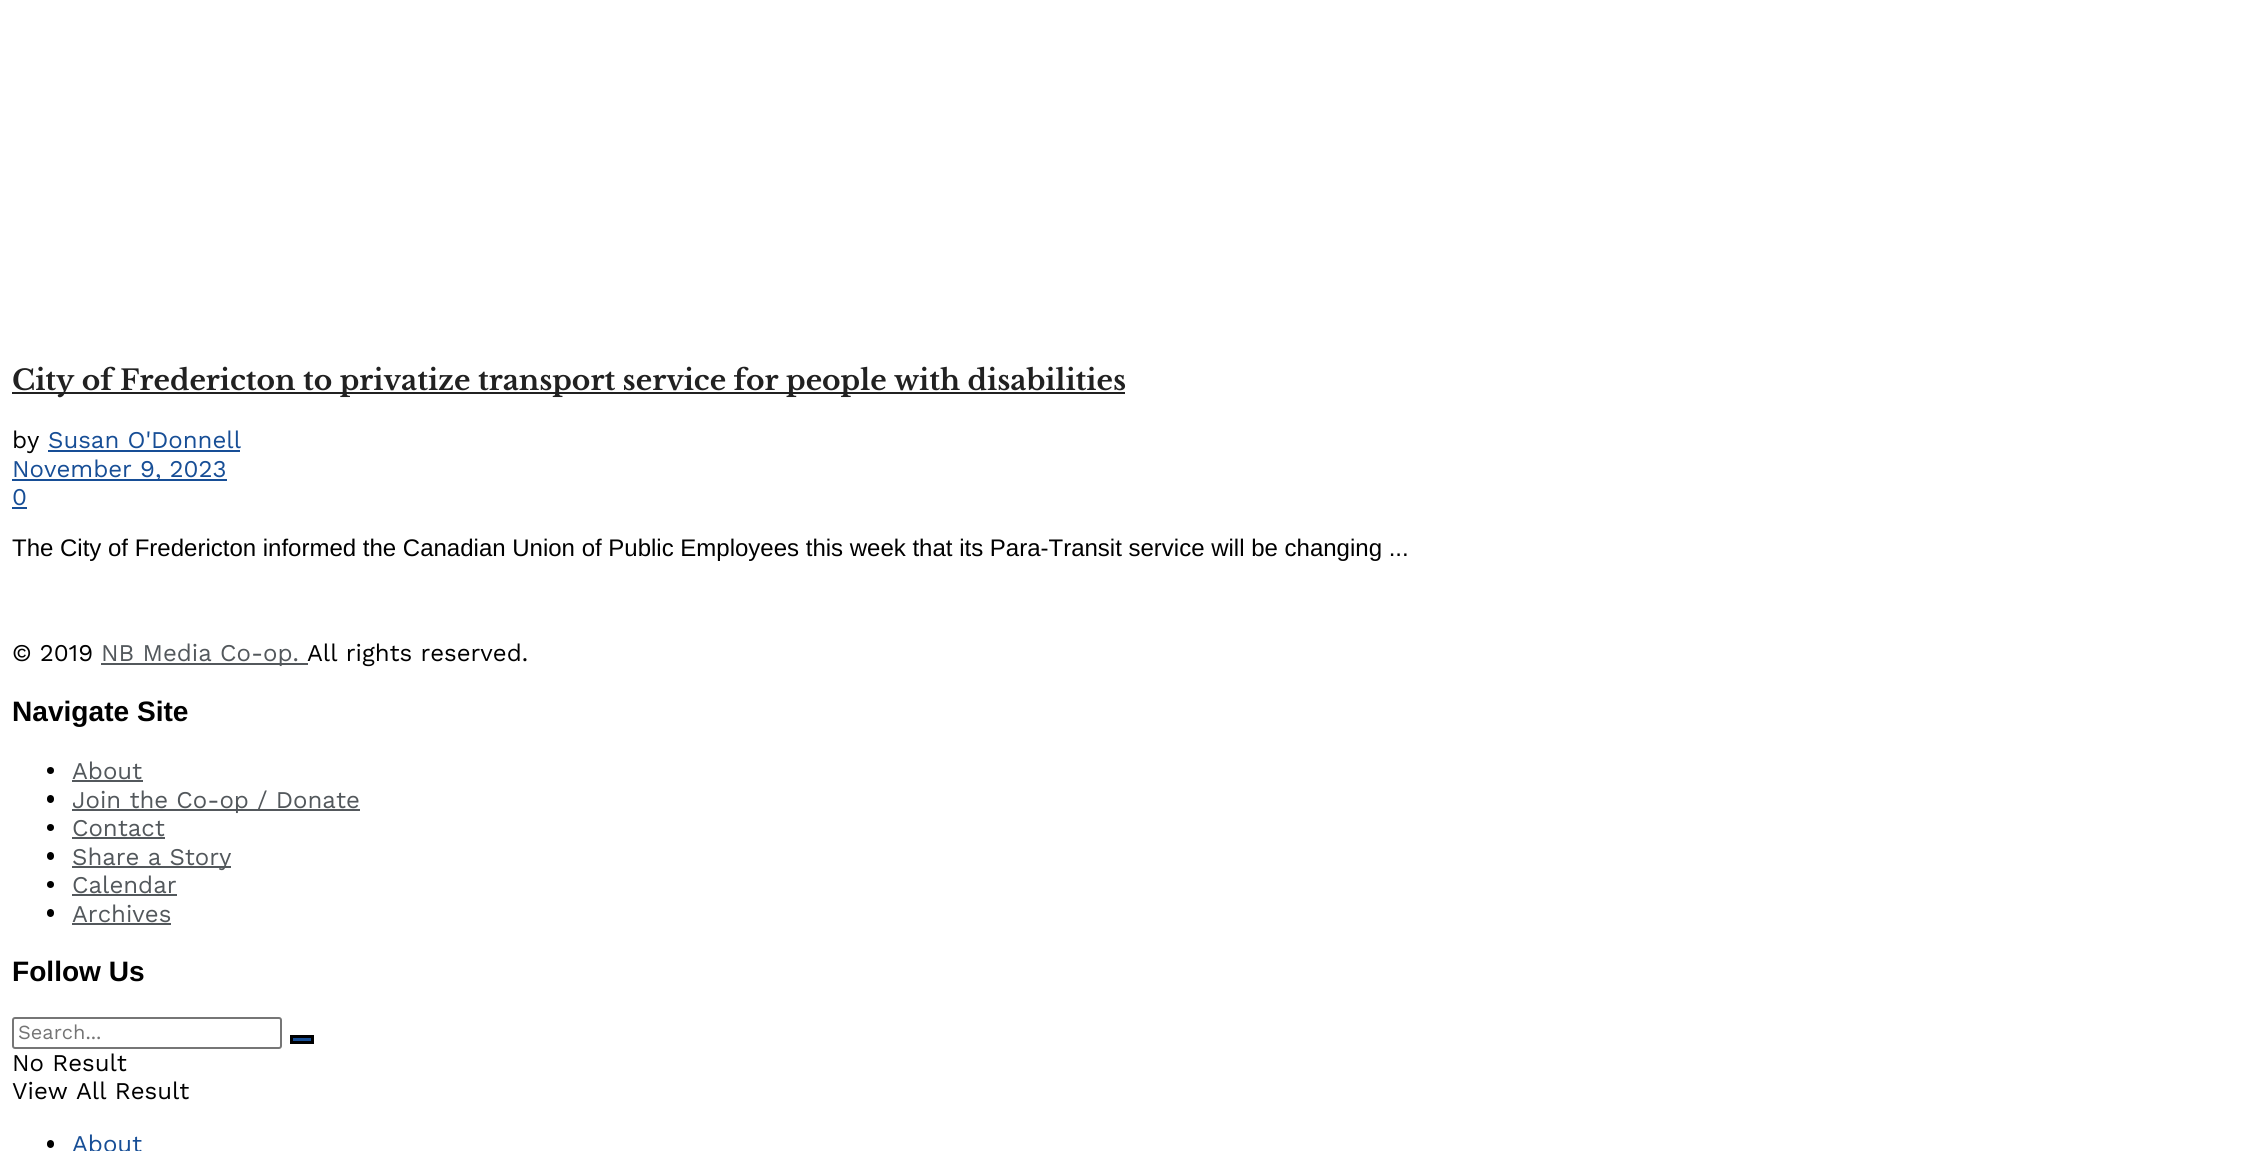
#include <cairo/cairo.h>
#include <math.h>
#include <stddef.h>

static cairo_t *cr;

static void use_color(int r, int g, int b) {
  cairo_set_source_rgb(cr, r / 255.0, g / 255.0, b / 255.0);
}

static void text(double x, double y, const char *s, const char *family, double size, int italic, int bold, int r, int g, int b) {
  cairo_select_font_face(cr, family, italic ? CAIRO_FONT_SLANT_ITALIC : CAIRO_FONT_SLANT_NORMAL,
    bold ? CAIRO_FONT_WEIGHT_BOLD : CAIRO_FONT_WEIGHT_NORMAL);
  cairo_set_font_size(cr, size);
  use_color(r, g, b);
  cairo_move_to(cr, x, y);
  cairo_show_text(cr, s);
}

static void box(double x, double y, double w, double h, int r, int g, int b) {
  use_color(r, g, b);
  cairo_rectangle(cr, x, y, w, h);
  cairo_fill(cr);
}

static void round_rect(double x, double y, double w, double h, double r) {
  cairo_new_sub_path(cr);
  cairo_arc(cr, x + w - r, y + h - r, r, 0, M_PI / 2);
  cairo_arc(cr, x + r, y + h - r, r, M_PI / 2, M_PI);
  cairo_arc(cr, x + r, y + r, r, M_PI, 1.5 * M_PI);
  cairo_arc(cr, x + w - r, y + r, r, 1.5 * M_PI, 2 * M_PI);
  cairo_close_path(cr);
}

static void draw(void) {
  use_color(255, 255, 255);
  cairo_paint(cr);
  box(12, 392, 1113, 2, 33, 33, 33);
  box(48, 450, 192, 2, 23, 78, 150);
  box(12, 479, 215, 2, 23, 78, 150);
  box(12, 507, 15, 2, 23, 78, 150);
  box(101, 663, 207, 2, 83, 88, 92);
  use_color(0, 0, 0);
  cairo_arc(cr, 50.5, 770.5, 3.5, 0, 2 * M_PI);
  cairo_fill(cr);
  box(72, 780, 71, 2, 83, 88, 92);
  use_color(0, 0, 0);
  round_rect(47, 795, 7, 8, 3.5);
  cairo_fill(cr);
  box(72, 809, 288, 2, 83, 88, 92);
  use_color(0, 0, 0);
  cairo_arc(cr, 50.5, 827.5, 3.5, 0, 2 * M_PI);
  cairo_fill(cr);
  box(72, 837, 93, 2, 83, 88, 92);
  use_color(0, 0, 0);
  round_rect(47, 852, 7, 8, 3.5);
  cairo_fill(cr);
  box(72, 866, 159, 2, 83, 88, 92);
  use_color(0, 0, 0);
  cairo_arc(cr, 50.5, 884.5, 3.5, 0, 2 * M_PI);
  cairo_fill(cr);
  box(72, 894, 105, 2, 83, 88, 92);
  use_color(0, 0, 0);
  round_rect(47, 909, 7, 8, 3.5);
  cairo_fill(cr);
  box(72, 923, 99, 2, 83, 88, 92);
  round_rect(13, 1018, 268, 30, 2);
  use_color(118, 118, 118);
  cairo_stroke(cr);
  use_color(23, 78, 150);
  cairo_rectangle(cr, 291.5, 1036.5, 21, 6);
  cairo_fill_preserve(cr);
  use_color(0, 0, 0);
  cairo_set_line_width(cr, 3);
  cairo_stroke(cr);
  round_rect(47, 1140, 7, 8, 3.5);
  cairo_fill(cr);
  text(12, 390, "City of Fredericton to privatize transport service for people with disabilities", "Libre Baskerville", 28.1, 0, 1, 33, 33, 33);
  text(12, 448, "by", "Work Sans", 24, 0, 0, 0, 0, 0);
  text(48, 448, "Susan O'Donnell", "Work Sans", 24, 0, 0, 23, 78, 150);
  text(12, 477, "November 9, 2023", "Work Sans", 24, 0, 0, 23, 78, 150);
  text(12, 505, "0", "Work Sans", 24, 0, 0, 23, 78, 150);
  text(12, 556, "The City of Fredericton informed the Canadian Union of Public Employees this week that its Para-Transit service will be changing ...", "Liberation Sans", 24, 0, 0, 0, 0, 0);
  text(12, 661, "© 2019", "Work Sans", 24, 0, 0, 0, 0, 0);
  text(101, 661, "NB Media Co-op.", "Work Sans", 24, 0, 0, 83, 88, 92);
  text(307, 661, "All rights reserved.", "Work Sans", 24, 0, 0, 0, 0, 0);
  text(12, 721, "Navigate Site", "Liberation Sans", 28.1, 0, 1, 0, 0, 0);
  text(72, 779, "About", "Work Sans", 24, 0, 0, 83, 88, 92);
  text(72, 808, "Join the Co-op / Donate", "Work Sans", 24, 0, 0, 83, 88, 92);
  text(72, 836, "Contact", "Work Sans", 24, 0, 0, 83, 88, 92);
  text(72, 865, "Share a Story", "Work Sans", 24, 0, 0, 83, 88, 92);
  text(72, 893, "Calendar", "Work Sans", 24, 0, 0, 83, 88, 92);
  text(72, 922, "Archives", "Work Sans", 24, 0, 0, 83, 88, 92);
  text(12, 981, "Follow Us", "Liberation Sans", 28.1, 0, 1, 0, 0, 0);
  text(18, 1039, "Search...", "Work Sans", 20, 0, 0, 117, 117, 117);
  text(12, 1071, "No Result", "Work Sans", 24, 0, 0, 0, 0, 0);
  text(12, 1099, "View All Result", "Work Sans", 24, 0, 0, 0, 0, 0);
  text(72, 1152, "About", "Work Sans", 24, 0, 0, 23, 78, 150);
}

int main(void) {
  cairo_surface_t *surface = cairo_image_surface_create(CAIRO_FORMAT_RGB24, 2263, 1151);
  cr = cairo_create(surface);
  cairo_font_options_t *options = cairo_font_options_create();
  cairo_font_options_set_hint_metrics(options, CAIRO_HINT_METRICS_OFF);
  cairo_font_options_set_hint_style(options, CAIRO_HINT_STYLE_NONE);
  cairo_set_font_options(cr, options);
  cairo_set_miter_limit(cr, 4);
  draw();
  cairo_surface_write_to_png(surface, "out.png");
  cairo_font_options_destroy(options);
  cairo_destroy(cr);
  cairo_surface_destroy(surface);
  return 0;
}
